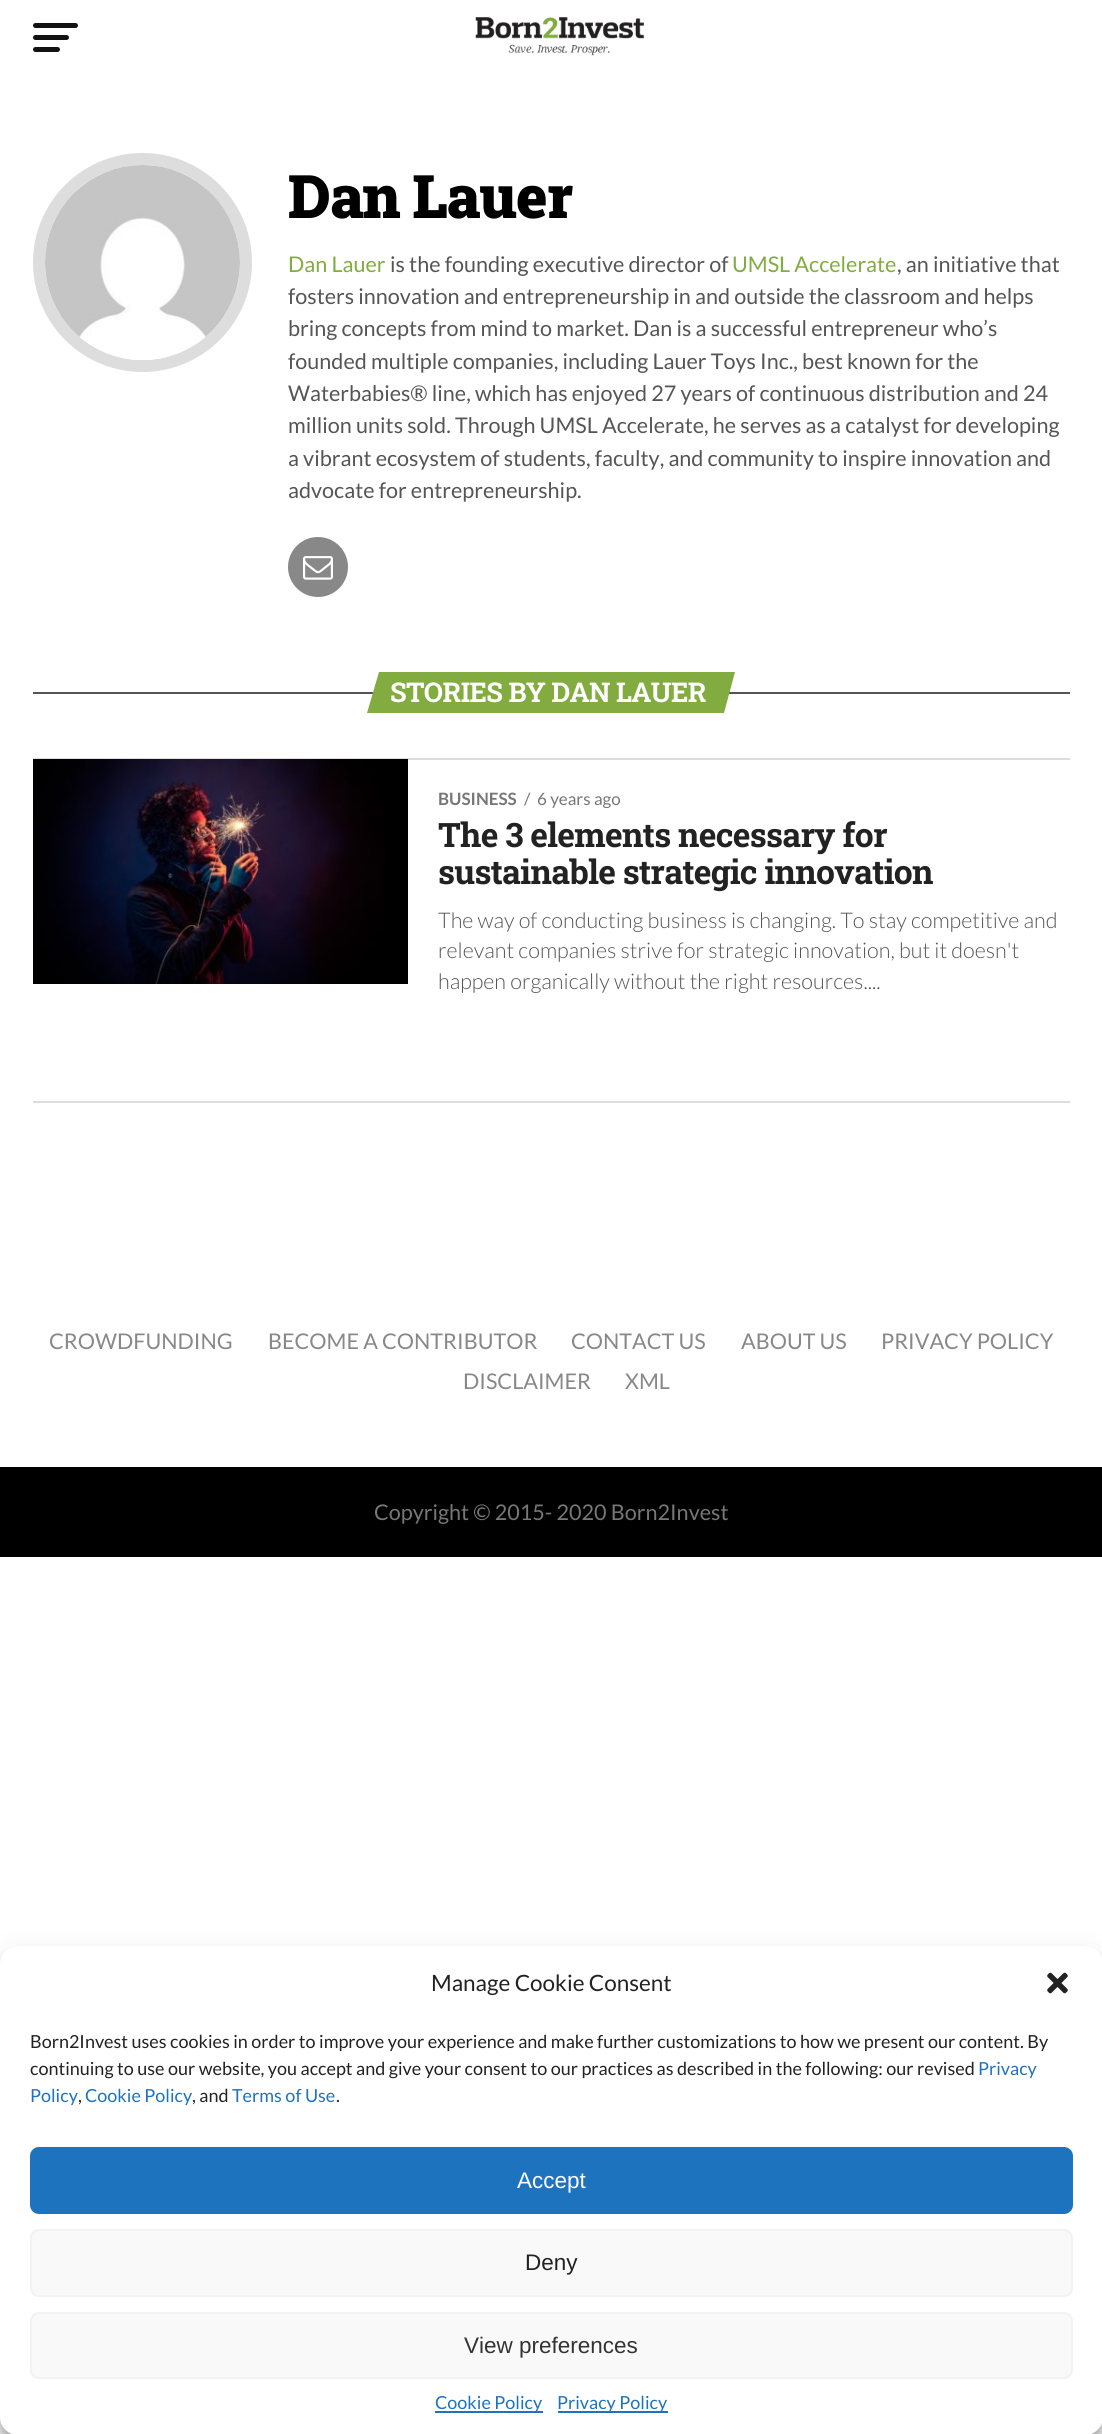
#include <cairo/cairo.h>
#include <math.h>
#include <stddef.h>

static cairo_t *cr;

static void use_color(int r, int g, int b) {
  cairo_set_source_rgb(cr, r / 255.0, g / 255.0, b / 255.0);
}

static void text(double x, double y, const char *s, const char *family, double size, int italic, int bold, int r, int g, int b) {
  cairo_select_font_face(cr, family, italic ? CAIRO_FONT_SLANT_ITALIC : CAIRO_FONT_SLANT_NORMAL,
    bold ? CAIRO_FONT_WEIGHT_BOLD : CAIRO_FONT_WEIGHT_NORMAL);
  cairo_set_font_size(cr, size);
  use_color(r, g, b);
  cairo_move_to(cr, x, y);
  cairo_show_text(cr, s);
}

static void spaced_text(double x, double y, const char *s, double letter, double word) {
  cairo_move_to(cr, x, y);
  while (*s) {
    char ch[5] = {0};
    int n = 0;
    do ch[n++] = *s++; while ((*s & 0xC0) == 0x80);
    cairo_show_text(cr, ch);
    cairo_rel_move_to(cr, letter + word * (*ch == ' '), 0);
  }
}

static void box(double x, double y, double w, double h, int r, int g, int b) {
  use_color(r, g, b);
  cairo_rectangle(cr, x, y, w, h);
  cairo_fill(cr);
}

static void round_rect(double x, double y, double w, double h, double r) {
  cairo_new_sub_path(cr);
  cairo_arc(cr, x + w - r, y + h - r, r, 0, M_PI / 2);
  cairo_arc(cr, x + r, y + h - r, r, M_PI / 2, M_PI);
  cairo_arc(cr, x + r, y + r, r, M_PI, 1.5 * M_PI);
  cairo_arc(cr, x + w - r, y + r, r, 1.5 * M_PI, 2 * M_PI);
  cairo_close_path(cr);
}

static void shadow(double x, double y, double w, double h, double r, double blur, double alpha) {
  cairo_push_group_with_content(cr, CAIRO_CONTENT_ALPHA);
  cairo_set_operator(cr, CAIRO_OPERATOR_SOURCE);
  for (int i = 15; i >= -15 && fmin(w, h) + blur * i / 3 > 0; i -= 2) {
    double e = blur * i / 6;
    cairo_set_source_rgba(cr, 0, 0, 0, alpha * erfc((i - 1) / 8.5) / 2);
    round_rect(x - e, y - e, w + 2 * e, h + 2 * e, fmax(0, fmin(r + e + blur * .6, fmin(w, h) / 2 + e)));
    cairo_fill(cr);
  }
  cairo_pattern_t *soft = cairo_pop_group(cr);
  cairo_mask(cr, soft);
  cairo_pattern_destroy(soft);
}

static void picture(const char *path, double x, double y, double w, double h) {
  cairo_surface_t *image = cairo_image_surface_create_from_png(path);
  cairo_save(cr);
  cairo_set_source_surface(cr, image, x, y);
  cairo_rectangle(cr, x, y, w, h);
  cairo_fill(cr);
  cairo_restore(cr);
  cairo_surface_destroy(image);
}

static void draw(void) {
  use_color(255, 255, 255);
  cairo_paint(cr);
  use_color(19, 18, 18);
  round_rect(33, 23, 45, 5, 2.5);
  cairo_fill(cr);
  round_rect(33, 35, 36, 5, 2.5);
  cairo_fill(cr);
  round_rect(33, 47, 27, 5, 2.5);
  cairo_fill(cr);
  picture("img_01.png", 475, 17, 170, 39);
  cairo_arc(cr, 142.5, 262.5, 103.5, 0, 2 * M_PI);
  use_color(221, 221, 221);
  cairo_set_line_width(cr, 12);
  cairo_stroke(cr);
  picture("img_02.png", 45, 165, 195, 195);
  use_color(136, 136, 136);
  cairo_arc(cr, 318, 567, 30, 0, 2 * M_PI);
  cairo_fill(cr);
  picture("img_03.png", 303, 556, 30, 24);
  box(33, 692, 1037, 2, 85, 85, 85);
  use_color(130, 171, 64);
  cairo_new_path(cr);
  cairo_move_to(cr, 379, 672);
  cairo_line_to(cr, 735, 672);
  cairo_line_to(cr, 724, 713);
  cairo_line_to(cr, 367, 713);
  cairo_close_path(cr);
  cairo_fill(cr);
  box(33, 758, 1037, 2, 221, 221, 221);
  box(385, 759, 23, 225, 0, 0, 0);
  picture("img_04.png", 33, 759, 352, 225);
  box(33, 1101, 1037, 2, 221, 221, 221);
  box(0, 1467, 1102, 90, 0, 0, 0);
  use_color(0, 0, 0);
  shadow(0, 1955, 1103, 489, 18, 4.5, 0.23);
  shadow(0, 1961, 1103, 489, 18, 15, 0.19);
  use_color(255, 255, 255);
  round_rect(0, 1946, 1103, 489, 18);
  cairo_fill(cr);
  picture("img_05.png", 1047, 1972, 21, 22);
  use_color(30, 115, 190);
  round_rect(31, 2148, 1041, 65, 8);
  cairo_fill_preserve(cr);
  cairo_set_line_width(cr, 2);
  cairo_stroke(cr);
  use_color(249, 249, 249);
  round_rect(31, 2230, 1041, 66, 8);
  cairo_fill_preserve(cr);
  use_color(242, 242, 242);
  cairo_stroke(cr);
  use_color(249, 249, 249);
  round_rect(31, 2313, 1041, 65, 8);
  cairo_fill_preserve(cr);
  use_color(242, 242, 242);
  cairo_stroke(cr);
  box(435, 2411, 108, 2, 30, 115, 190);
  box(558, 2411, 110, 2, 30, 115, 190);
  cairo_select_font_face(cr, "Roboto Slab Black", CAIRO_FONT_SLANT_NORMAL, CAIRO_FONT_WEIGHT_NORMAL);
  cairo_set_font_size(cr, 60);
  use_color(0, 0, 0);
  spaced_text(288, 218, "Dan Lauer", -1.25, 0);
  text(288, 272, "Dan Lauer", "Lato", 21.6, 0, 0, 130, 171, 64);
  text(390, 272, "is the founding executive director of", "Lato", 21.6, 0, 0, 85, 85, 85);
  text(732, 272, "UMSL Accelerate", "Lato", 21.6, 0, 0, 130, 171, 64);
  text(897, 272, ", an initiative that", "Lato", 21.6, 0, 0, 85, 85, 85);
  text(288, 304, "fosters innovation and entrepreneurship in and outside the classroom and helps", "Lato", 21.6, 0, 0, 85, 85, 85);
  text(288, 336, "bring concepts from mind to market. Dan is a successful entrepreneur who’s", "Lato", 21.6, 0, 0, 85, 85, 85);
  text(288, 369, "founded multiple companies, including Lauer Toys Inc., best known for the", "Lato", 21.6, 0, 0, 85, 85, 85);
  text(288, 401, "Waterbabies® line, which has enjoyed 27 years of continuous distribution and 24", "Lato", 21.6, 0, 0, 85, 85, 85);
  text(288, 433, "million units sold. Through UMSL Accelerate, he serves as a catalyst for developing", "Lato", 21.6, 0, 0, 85, 85, 85);
  text(288, 466, "a vibrant ecosystem of students, faculty, and community to inspire innovation and", "Lato", 21.6, 0, 0, 85, 85, 85);
  text(288, 498, "advocate for entrepreneurship.", "Lato", 21.6, 0, 0, 85, 85, 85);
  cairo_select_font_face(cr, "Roboto Slab", CAIRO_FONT_SLANT_NORMAL, CAIRO_FONT_WEIGHT_BOLD);
  cairo_set_font_size(cr, 27.25);
  use_color(255, 255, 255);
  spaced_text(390, 702, "STORIES BY DAN LAUER", -0.6, 0);
  text(438, 805, "BUSINESS", "Lato", 17, 0, 1, 119, 119, 119);
  text(524, 805, "/", "Lato", 17, 0, 0, 119, 119, 119);
  text(537, 805, "6 years ago", "Lato", 17, 0, 0, 119, 119, 119);
  cairo_select_font_face(cr, "Roboto Slab", CAIRO_FONT_SLANT_NORMAL, CAIRO_FONT_WEIGHT_BOLD);
  cairo_set_font_size(cr, 33.6);
  use_color(34, 34, 34);
  spaced_text(438, 847, "The 3 elements necessary for", -0.7, 0);
  spaced_text(438, 884, "sustainable strategic innovation", -0.7, 0);
  text(438, 928, "The way of conducting business is changing. To stay competitive and", "Lato Light", 21.6, 0, 0, 85, 85, 85);
  text(438, 958, "relevant companies strive for strategic innovation, but it doesn't", "Lato Light", 21.6, 0, 0, 85, 85, 85);
  text(438, 989, "happen organically without the right resources....", "Lato Light", 21.6, 0, 0, 85, 85, 85);
  text(49, 1349, "CROWDFUNDING", "Lato", 21.6, 0, 0, 136, 136, 136);
  text(268, 1349, "BECOME A CONTRIBUTOR", "Lato", 21.6, 0, 0, 136, 136, 136);
  text(571, 1349, "CONTACT US", "Lato", 21.6, 0, 0, 136, 136, 136);
  text(741, 1349, "ABOUT US", "Lato", 21.6, 0, 0, 136, 136, 136);
  text(881, 1349, "PRIVACY POLICY", "Lato", 21.6, 0, 0, 136, 136, 136);
  text(463, 1389, "DISCLAIMER", "Lato", 21.6, 0, 0, 136, 136, 136);
  text(625, 1389, "XML", "Lato", 21.6, 0, 0, 136, 136, 136);
  text(374, 1520, "Copyright © 2015- 2020 Born2Invest", "Lato", 21.6, 0, 0, 119, 119, 119);
  text(431, 1991, "Manage Cookie Consent", "Lato", 22.5, 0, 0, 34, 34, 34);
  text(30, 2048, "Born2Invest uses cookies in order to improve your experience and make further customizations to how we present our content. By", "Lato", 18, 0, 0, 34, 34, 34);
  text(30, 2075, "continuing to use our website, you accept and give your consent to our practices as described in the following: our revised", "Lato", 18, 0, 0, 34, 34, 34);
  text(978, 2075, "Privacy", "Lato", 18, 0, 0, 30, 115, 190);
  text(30, 2102, "Policy", "Lato", 18, 0, 0, 30, 115, 190);
  text(78, 2102, ",", "Lato", 18, 0, 0, 34, 34, 34);
  text(85, 2102, "Cookie Policy", "Lato", 18, 0, 0, 30, 115, 190);
  text(192, 2102, ", and", "Lato", 18, 0, 0, 34, 34, 34);
  text(232, 2102, "Terms of Use", "Lato", 18, 0, 0, 30, 115, 190);
  text(336, 2102, ".", "Lato", 18, 0, 0, 34, 34, 34);
  text(517, 2188, "Accept", "Liberation Sans", 22.5, 0, 0, 255, 255, 255);
  text(525, 2270, "Deny", "Liberation Sans", 22.5, 0, 0, 34, 34, 34);
  text(464, 2353, "View preferences", "Liberation Sans", 22.5, 0, 0, 51, 51, 51);
  text(435, 2409, "Cookie Policy", "Lato", 18, 0, 0, 30, 115, 190);
  text(557, 2409, "Privacy Policy", "Lato", 18, 0, 0, 30, 115, 190);
}

int main(void) {
  cairo_surface_t *surface = cairo_image_surface_create(CAIRO_FORMAT_RGB24, 1102, 2434);
  cr = cairo_create(surface);
  cairo_font_options_t *options = cairo_font_options_create();
  cairo_font_options_set_hint_metrics(options, CAIRO_HINT_METRICS_OFF);
  cairo_font_options_set_hint_style(options, CAIRO_HINT_STYLE_NONE);
  cairo_set_font_options(cr, options);
  cairo_set_miter_limit(cr, 4);
  draw();
  cairo_surface_write_to_png(surface, "out.png");
  cairo_font_options_destroy(options);
  cairo_destroy(cr);
  cairo_surface_destroy(surface);
  return 0;
}
